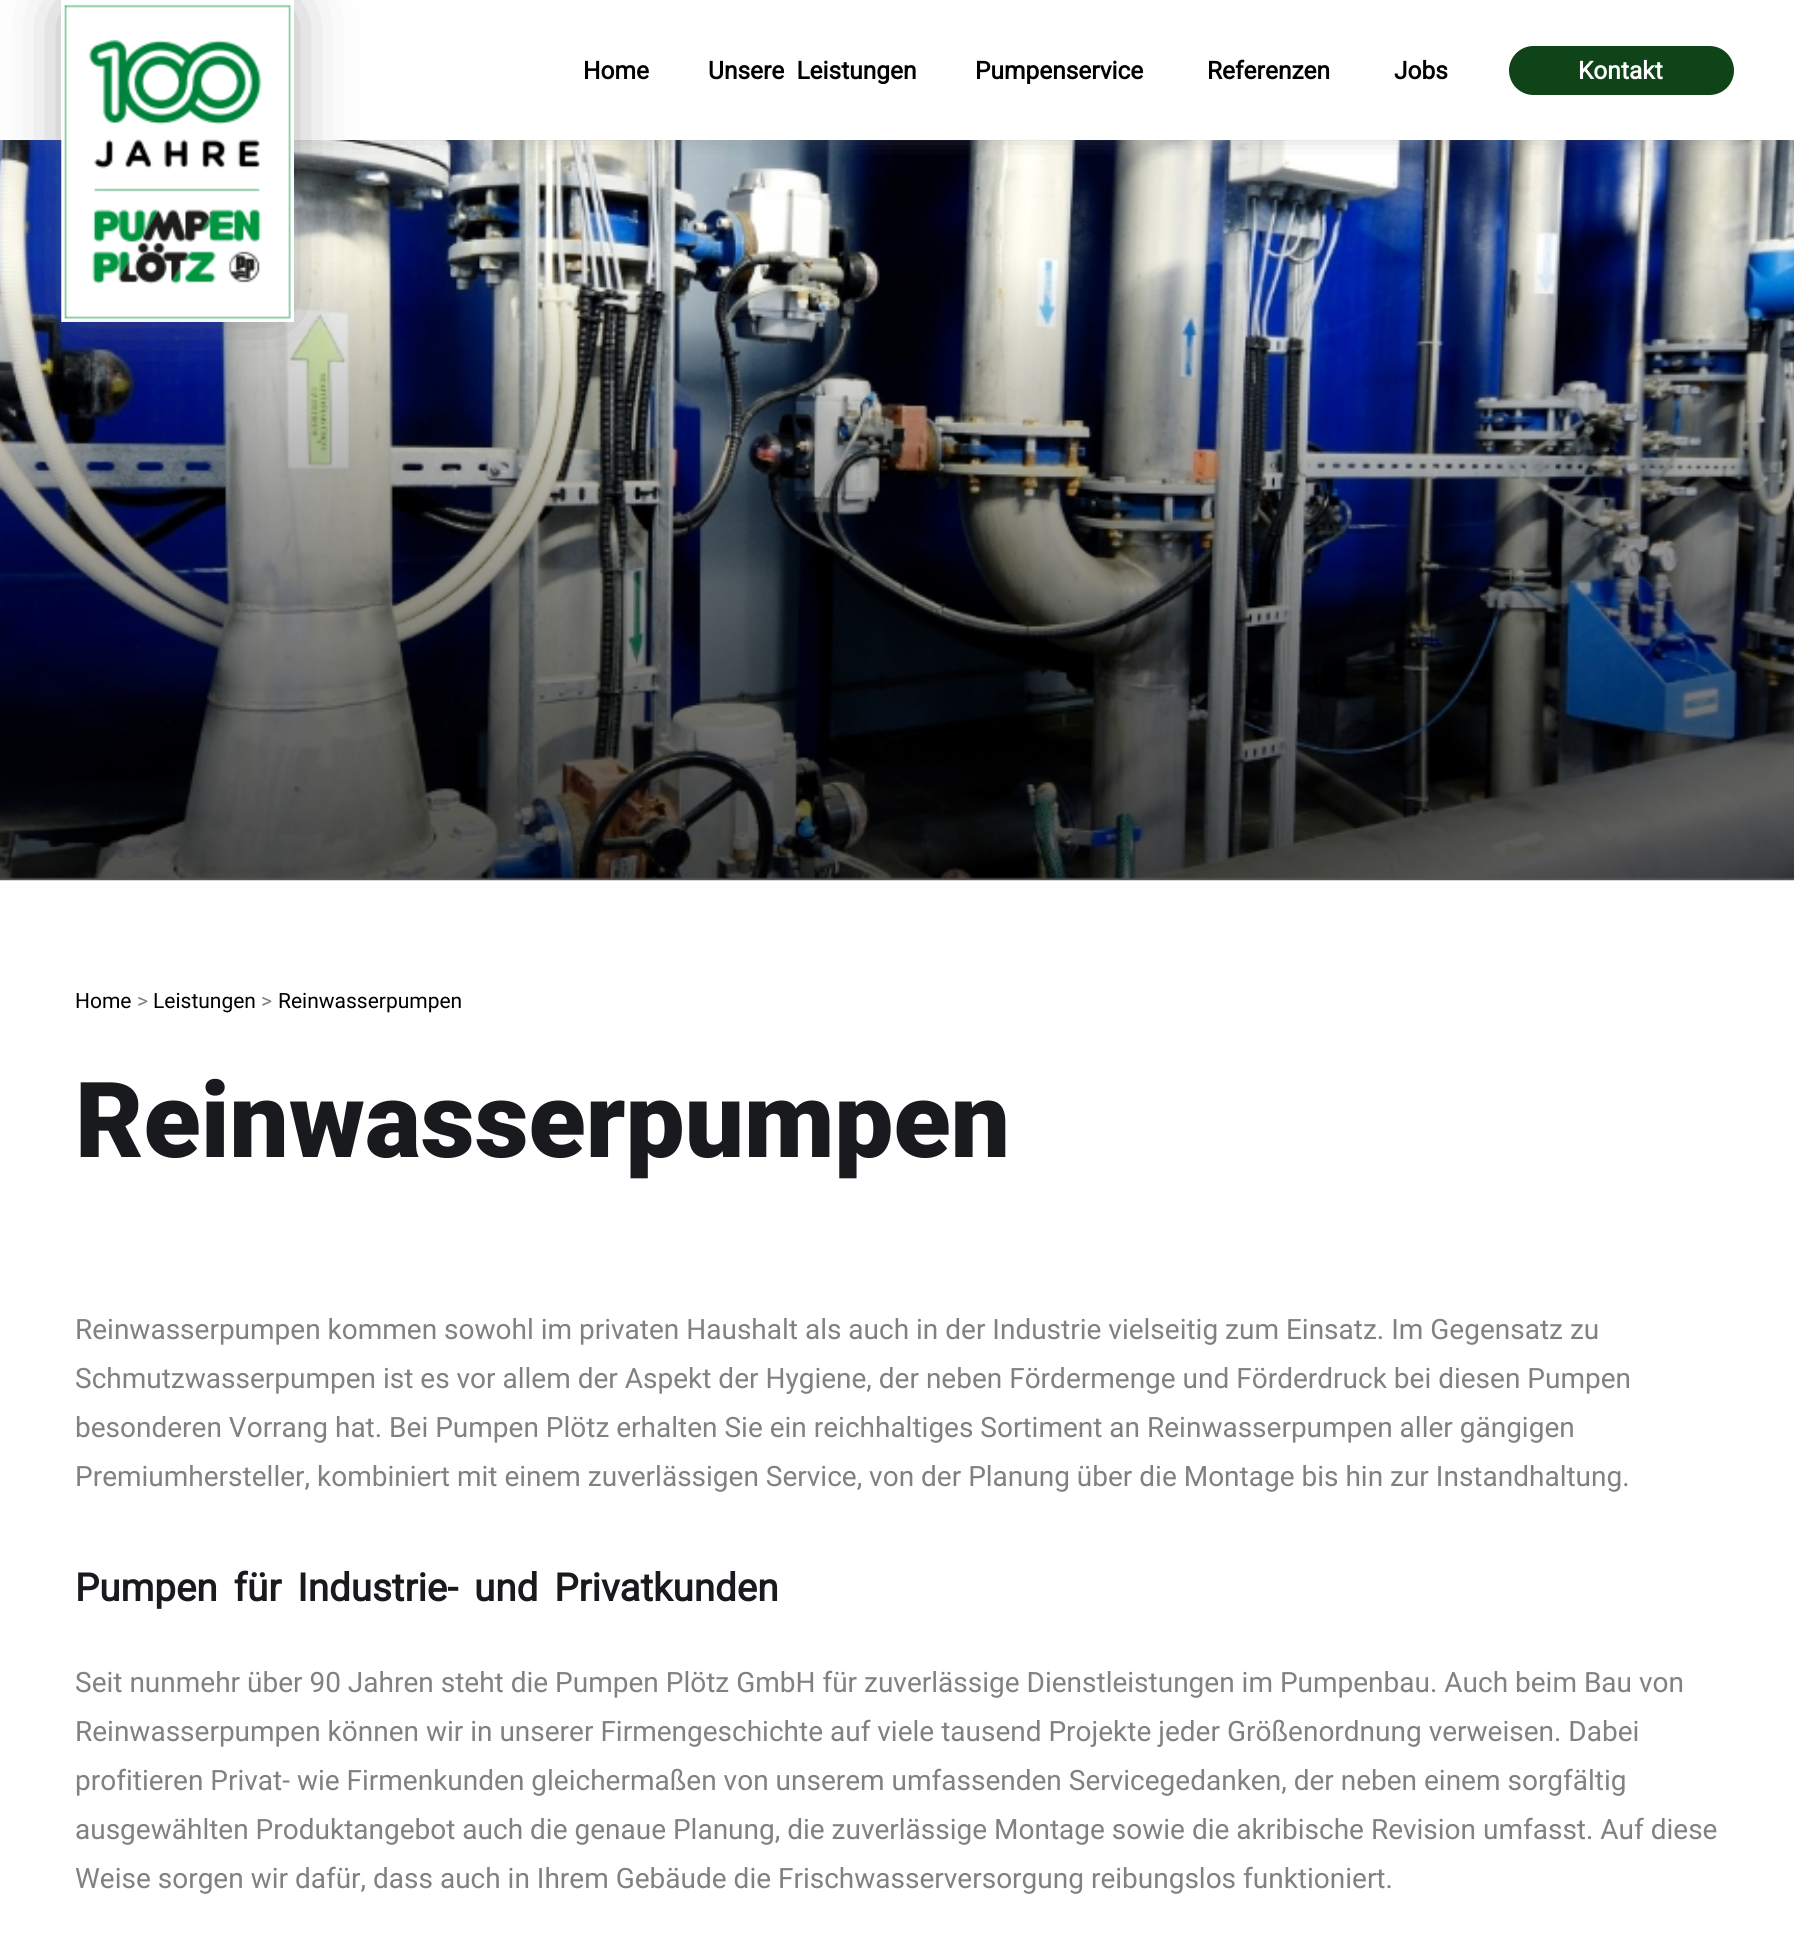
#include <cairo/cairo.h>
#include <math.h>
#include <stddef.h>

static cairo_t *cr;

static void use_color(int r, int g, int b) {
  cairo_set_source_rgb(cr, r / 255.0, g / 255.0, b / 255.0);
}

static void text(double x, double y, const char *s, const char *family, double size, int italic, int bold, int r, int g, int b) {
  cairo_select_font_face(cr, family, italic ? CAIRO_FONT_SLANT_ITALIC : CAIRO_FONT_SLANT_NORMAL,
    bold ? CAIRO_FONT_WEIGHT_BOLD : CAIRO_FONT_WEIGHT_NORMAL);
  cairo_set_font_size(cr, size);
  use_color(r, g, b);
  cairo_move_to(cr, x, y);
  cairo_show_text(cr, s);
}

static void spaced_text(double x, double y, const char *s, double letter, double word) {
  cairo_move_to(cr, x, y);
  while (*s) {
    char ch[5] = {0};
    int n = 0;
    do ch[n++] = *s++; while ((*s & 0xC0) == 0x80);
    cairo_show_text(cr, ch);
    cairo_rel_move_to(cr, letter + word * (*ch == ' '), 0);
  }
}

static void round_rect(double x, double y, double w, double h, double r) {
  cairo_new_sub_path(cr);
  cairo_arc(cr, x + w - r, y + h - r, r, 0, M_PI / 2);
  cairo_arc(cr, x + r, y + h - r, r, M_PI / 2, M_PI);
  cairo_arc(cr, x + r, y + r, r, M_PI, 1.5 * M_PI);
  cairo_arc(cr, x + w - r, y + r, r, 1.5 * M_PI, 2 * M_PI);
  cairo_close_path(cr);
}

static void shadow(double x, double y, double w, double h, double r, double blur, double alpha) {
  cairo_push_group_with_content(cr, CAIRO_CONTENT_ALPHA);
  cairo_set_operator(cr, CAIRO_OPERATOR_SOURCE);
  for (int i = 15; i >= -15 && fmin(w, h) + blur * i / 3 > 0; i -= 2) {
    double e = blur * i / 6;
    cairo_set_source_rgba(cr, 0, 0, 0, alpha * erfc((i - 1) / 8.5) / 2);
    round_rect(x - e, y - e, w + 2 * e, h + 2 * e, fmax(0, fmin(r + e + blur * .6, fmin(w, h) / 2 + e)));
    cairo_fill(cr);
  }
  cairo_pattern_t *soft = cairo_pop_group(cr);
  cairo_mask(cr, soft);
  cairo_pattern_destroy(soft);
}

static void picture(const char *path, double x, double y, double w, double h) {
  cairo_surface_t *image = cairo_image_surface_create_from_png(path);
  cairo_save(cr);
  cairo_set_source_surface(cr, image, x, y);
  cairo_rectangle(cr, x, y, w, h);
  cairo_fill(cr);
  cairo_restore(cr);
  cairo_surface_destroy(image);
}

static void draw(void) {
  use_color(255, 255, 255);
  cairo_paint(cr);
  picture("img_02.png", 0, 140, 1794, 741);
  cairo_save(cr);
  cairo_rectangle(cr, 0, 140, 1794, 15);
  cairo_clip(cr);
  use_color(115, 115, 115);
  shadow(11, 11, 1774, 119, 0, 13, 0.75);
  cairo_restore(cr);
  cairo_save(cr);
  cairo_set_fill_rule(cr, CAIRO_FILL_RULE_EVEN_ODD);
  cairo_new_path(cr);
  cairo_move_to(cr, 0, 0);
  cairo_line_to(cr, 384, 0);
  cairo_line_to(cr, 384, 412);
  cairo_line_to(cr, 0, 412);
  cairo_close_path(cr);
  cairo_move_to(cr, 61, 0);
  cairo_line_to(cr, 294, 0);
  cairo_line_to(cr, 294, 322);
  cairo_line_to(cr, 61, 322);
  cairo_close_path(cr);
  cairo_clip(cr);
  use_color(115, 115, 115);
  shadow(72, 11, 212, 301, 0, 33, 0.75);
  cairo_restore(cr);
  picture("img_01.png", 61, 4, 233, 318);
  use_color(15, 67, 24);
  round_rect(1509, 46, 225, 49, 24.5);
  cairo_fill(cr);
  text(583, 79, "Home", "Roboto", 24.5, 0, 1, 0, 0, 0);
  spaced_text(708, 79, "Unsere Leistungen", 0, 6);
  text(975, 79, "Pumpenservice", "Roboto", 24.5, 0, 1, 0, 0, 0);
  text(1207, 79, "Referenzen", "Roboto", 24.5, 0, 1, 0, 0, 0);
  text(1394, 79, "Jobs", "Roboto", 24.5, 0, 1, 0, 0, 0);
  text(1578, 79, "Kontakt", "Roboto", 24.5, 0, 1, 255, 255, 255);
  text(75, 1008, "Home", "Roboto", 21, 0, 0, 0, 0, 0);
  text(137, 1008, ">", "Roboto", 21, 0, 0, 129, 129, 129);
  text(153, 1008, "Leistungen", "Roboto", 21, 0, 0, 0, 0, 0);
  text(261, 1008, ">", "Roboto", 21, 0, 0, 129, 129, 129);
  text(278, 1008, "Reinwasserpumpen", "Roboto", 21, 0, 0, 0, 0, 0);
  text(75, 1157, "Reinwasserpumpen", "Roboto Black", 105, 0, 0, 25, 26, 29);
  text(75, 1339, "Reinwasserpumpen kommen sowohl im privaten Haushalt als auch in der Industrie vielseitig zum Einsatz. Im Gegensatz zu", "Roboto", 28, 0, 0, 129, 129, 129);
  text(75, 1388, "Schmutzwasserpumpen ist es vor allem der Aspekt der Hygiene, der neben Fördermenge und Förderdruck bei diesen Pumpen", "Roboto", 28, 0, 0, 129, 129, 129);
  text(75, 1437, "besonderen Vorrang hat. Bei Pumpen Plötz erhalten Sie ein reichhaltiges Sortiment an Reinwasserpumpen aller gängigen", "Roboto", 28, 0, 0, 129, 129, 129);
  text(75, 1486, "Premiumhersteller, kombiniert mit einem zuverlässigen Service, von der Planung über die Montage bis hin zur Instandhaltung.", "Roboto", 28, 0, 0, 129, 129, 129);
  cairo_select_font_face(cr, "Roboto", CAIRO_FONT_SLANT_NORMAL, CAIRO_FONT_WEIGHT_BOLD);
  cairo_set_font_size(cr, 38.5);
  use_color(25, 26, 29);
  spaced_text(75, 1601, "Pumpen für Industrie- und Privatkunden", 0, 6.5);
  text(75, 1692, "Seit nunmehr über 90 Jahren steht die Pumpen Plötz GmbH für zuverlässige Dienstleistungen im Pumpenbau. Auch beim Bau von", "Roboto", 28, 0, 0, 129, 129, 129);
  text(75, 1741, "Reinwasserpumpen können wir in unserer Firmengeschichte auf viele tausend Projekte jeder Größenordnung verweisen. Dabei", "Roboto", 28, 0, 0, 129, 129, 129);
  text(75, 1790, "profitieren Privat- wie Firmenkunden gleichermaßen von unserem umfassenden Servicegedanken, der neben einem sorgfältig", "Roboto", 28, 0, 0, 129, 129, 129);
  text(75, 1839, "ausgewählten Produktangebot auch die genaue Planung, die zuverlässige Montage sowie die akribische Revision umfasst. Auf diese", "Roboto", 28, 0, 0, 129, 129, 129);
  text(75, 1888, "Weise sorgen wir dafür, dass auch in Ihrem Gebäude die Frischwasserversorgung reibungslos funktioniert.", "Roboto", 28, 0, 0, 129, 129, 129);
}

int main(void) {
  cairo_surface_t *surface = cairo_image_surface_create(CAIRO_FORMAT_RGB24, 1794, 1936);
  cr = cairo_create(surface);
  cairo_font_options_t *options = cairo_font_options_create();
  cairo_font_options_set_hint_metrics(options, CAIRO_HINT_METRICS_OFF);
  cairo_font_options_set_hint_style(options, CAIRO_HINT_STYLE_NONE);
  cairo_set_font_options(cr, options);
  cairo_set_miter_limit(cr, 4);
  draw();
  cairo_surface_write_to_png(surface, "out.png");
  cairo_font_options_destroy(options);
  cairo_destroy(cr);
  cairo_surface_destroy(surface);
  return 0;
}
